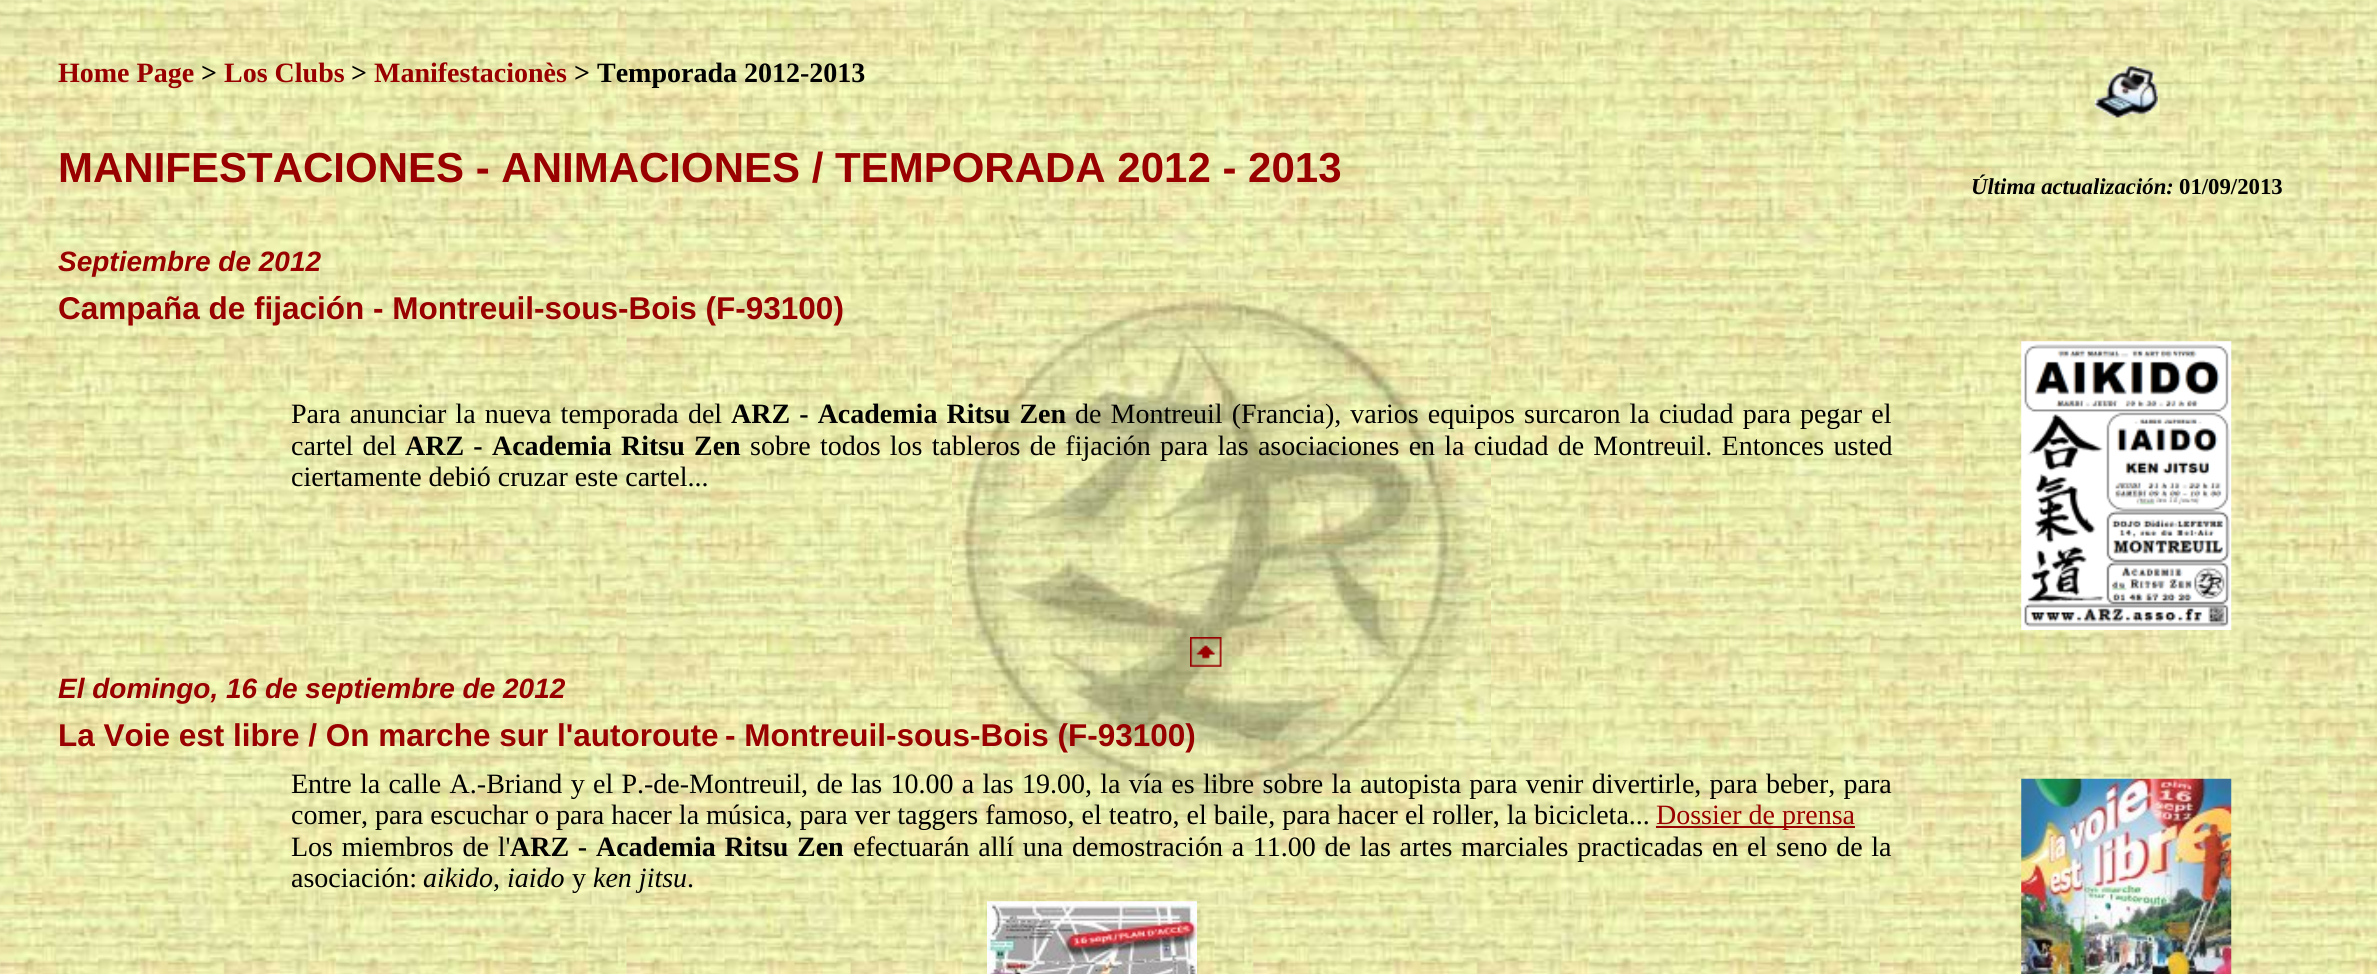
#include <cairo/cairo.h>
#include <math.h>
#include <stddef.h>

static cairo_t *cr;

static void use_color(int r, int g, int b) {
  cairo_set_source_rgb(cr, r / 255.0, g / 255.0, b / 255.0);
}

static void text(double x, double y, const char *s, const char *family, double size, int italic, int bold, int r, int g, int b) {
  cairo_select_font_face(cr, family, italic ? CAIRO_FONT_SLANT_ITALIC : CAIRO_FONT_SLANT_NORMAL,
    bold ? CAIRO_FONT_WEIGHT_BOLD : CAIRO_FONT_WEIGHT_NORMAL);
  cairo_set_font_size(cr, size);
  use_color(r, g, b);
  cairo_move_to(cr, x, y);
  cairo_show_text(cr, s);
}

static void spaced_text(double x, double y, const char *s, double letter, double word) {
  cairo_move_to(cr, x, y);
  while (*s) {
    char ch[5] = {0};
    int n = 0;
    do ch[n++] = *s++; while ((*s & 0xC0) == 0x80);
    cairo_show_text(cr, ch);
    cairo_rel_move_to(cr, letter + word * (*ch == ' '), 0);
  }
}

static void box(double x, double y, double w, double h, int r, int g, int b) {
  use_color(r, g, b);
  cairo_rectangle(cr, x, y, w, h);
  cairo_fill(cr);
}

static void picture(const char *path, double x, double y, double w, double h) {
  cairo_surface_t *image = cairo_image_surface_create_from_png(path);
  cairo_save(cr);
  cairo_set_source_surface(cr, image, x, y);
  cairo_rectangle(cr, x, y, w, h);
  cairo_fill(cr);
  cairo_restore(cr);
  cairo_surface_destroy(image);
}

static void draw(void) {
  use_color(255, 255, 255);
  cairo_paint(cr);
  picture("img_01.png", 0, 0, 2377, 974);
  picture("img_02.png", 2094, 66, 64, 52);
  picture("img_03.png", 2021, 341, 211, 289);
  picture("img_07.png", 952, 292, 539, 527);
  picture("img_04.png", 1190, 637, 32, 30);
  box(1656, 826, 199, 2, 153, 0, 0);
  picture("img_05.png", 2021, 778, 211, 196);
  picture("img_06.png", 987, 901, 210, 73);
  text(58, 82, "Home Page", "Liberation Serif", 28, 0, 1, 153, 0, 0);
  text(201, 82, ">", "Liberation Serif", 28, 0, 1, 0, 0, 0);
  text(224, 82, "Los Clubs", "Liberation Serif", 28, 0, 1, 153, 0, 0);
  text(351, 82, ">", "Liberation Serif", 28, 0, 1, 0, 0, 0);
  text(374, 82, "Manifestacionès", "Liberation Serif", 28, 0, 1, 153, 0, 0);
  text(574, 82, "> Temporada 2012-2013", "Liberation Serif", 28, 0, 1, 0, 0, 0);
  text(58, 182, "MANIFESTACIONES - ANIMACIONES / TEMPORADA 2012 - 2013", "Liberation Sans", 42, 0, 1, 153, 0, 0);
  text(1971, 194, "Última actualización:", "Liberation Serif", 22.75, 1, 1, 0, 0, 0);
  text(2179, 194, "01/09/2013", "Liberation Serif", 22.75, 0, 1, 0, 0, 0);
  text(58, 271, "Septiembre de 2012", "Liberation Sans", 28, 1, 1, 153, 0, 0);
  text(58, 319, "Campaña de fijación - Montreuil-sous-Bois (F-93100)", "Liberation Sans", 31.5, 0, 1, 153, 0, 0);
  cairo_select_font_face(cr, "Liberation Serif", CAIRO_FONT_SLANT_NORMAL, CAIRO_FONT_WEIGHT_NORMAL);
  cairo_set_font_size(cr, 28);
  use_color(0, 0, 0);
  spaced_text(291, 423, "Para anunciar la nueva temporada del", 0, 2.1);
  cairo_select_font_face(cr, "Liberation Serif", CAIRO_FONT_SLANT_NORMAL, CAIRO_FONT_WEIGHT_BOLD);
  spaced_text(731, 423, "ARZ - Academia Ritsu Zen", 0, 2.1);
  cairo_select_font_face(cr, "Liberation Serif", CAIRO_FONT_SLANT_NORMAL, CAIRO_FONT_WEIGHT_NORMAL);
  spaced_text(1075, 423, "de Montreuil (Francia), varios equipos surcaron la ciudad para pegar el", 0, 2.1);
  spaced_text(291, 455, "cartel del", 0, 2.25);
  cairo_select_font_face(cr, "Liberation Serif", CAIRO_FONT_SLANT_NORMAL, CAIRO_FONT_WEIGHT_BOLD);
  spaced_text(405, 455, "ARZ - Academia Ritsu Zen", 0, 2.25);
  cairo_select_font_face(cr, "Liberation Serif", CAIRO_FONT_SLANT_NORMAL, CAIRO_FONT_WEIGHT_NORMAL);
  spaced_text(750, 455, "sobre todos los tableros de fijación para las asociaciones en la ciudad de Montreuil. Entonces usted", 0, 2.25);
  text(291, 486, "ciertamente debió cruzar este cartel...", "Liberation Serif", 28, 0, 0, 0, 0, 0);
  text(58, 698, "El domingo, 16 de septiembre de 2012", "Liberation Sans", 28, 1, 1, 153, 0, 0);
  text(58, 746, "La Voie est libre / On marche sur l'autoroute", "Liberation Sans", 31.5, 0, 1, 153, 0, 0);
  text(725, 746, "- Montreuil-sous-Bois (F-93100)", "Liberation Sans", 31.5, 0, 1, 153, 0, 0);
  cairo_select_font_face(cr, "Liberation Serif", CAIRO_FONT_SLANT_NORMAL, CAIRO_FONT_WEIGHT_NORMAL);
  cairo_set_font_size(cr, 28);
  use_color(0, 0, 0);
  spaced_text(291, 793, "Entre la calle A.-Briand y el P.-de-Montreuil, de las 10.00 a las 19.00, la vía es libre sobre la autopista para venir divertirle, para beber, para", 0, 1.3);
  text(291, 824, "comer, para escuchar o para hacer la música, para ver taggers famoso, el teatro, el baile, para hacer el roller, la bicicleta...", "Liberation Serif", 28, 0, 0, 0, 0, 0);
  text(1656, 824, "Dossier de prensa", "Liberation Serif", 28, 0, 0, 153, 0, 0);
  use_color(0, 0, 0);
  spaced_text(291, 856, "Los miembros de l'", 0, 1.75);
  cairo_select_font_face(cr, "Liberation Serif", CAIRO_FONT_SLANT_NORMAL, CAIRO_FONT_WEIGHT_BOLD);
  spaced_text(510, 856, "ARZ - Academia Ritsu Zen", 0, 1.75);
  cairo_select_font_face(cr, "Liberation Serif", CAIRO_FONT_SLANT_NORMAL, CAIRO_FONT_WEIGHT_NORMAL);
  spaced_text(853, 856, "efectuarán allí una demostración a 11.00 de las artes marciales practicadas en el seno de la", 0, 1.75);
  text(291, 887, "asociación:", "Liberation Serif", 28, 0, 0, 0, 0, 0);
  text(423, 887, "aikido", "Liberation Serif", 28, 1, 0, 0, 0, 0);
  text(493, 887, ",", "Liberation Serif", 28, 0, 0, 0, 0, 0);
  text(507, 887, "iaido", "Liberation Serif", 28, 1, 0, 0, 0, 0);
  text(572, 887, "y", "Liberation Serif", 28, 0, 0, 0, 0, 0);
  text(593, 887, "ken jitsu", "Liberation Serif", 28, 1, 0, 0, 0, 0);
  text(687, 887, ".", "Liberation Serif", 28, 0, 0, 0, 0, 0);
}

int main(void) {
  cairo_surface_t *surface = cairo_image_surface_create(CAIRO_FORMAT_RGB24, 2377, 974);
  cr = cairo_create(surface);
  cairo_font_options_t *options = cairo_font_options_create();
  cairo_font_options_set_hint_metrics(options, CAIRO_HINT_METRICS_OFF);
  cairo_font_options_set_hint_style(options, CAIRO_HINT_STYLE_NONE);
  cairo_set_font_options(cr, options);
  cairo_set_miter_limit(cr, 4);
  draw();
  cairo_surface_write_to_png(surface, "out.png");
  cairo_font_options_destroy(options);
  cairo_destroy(cr);
  cairo_surface_destroy(surface);
  return 0;
}
